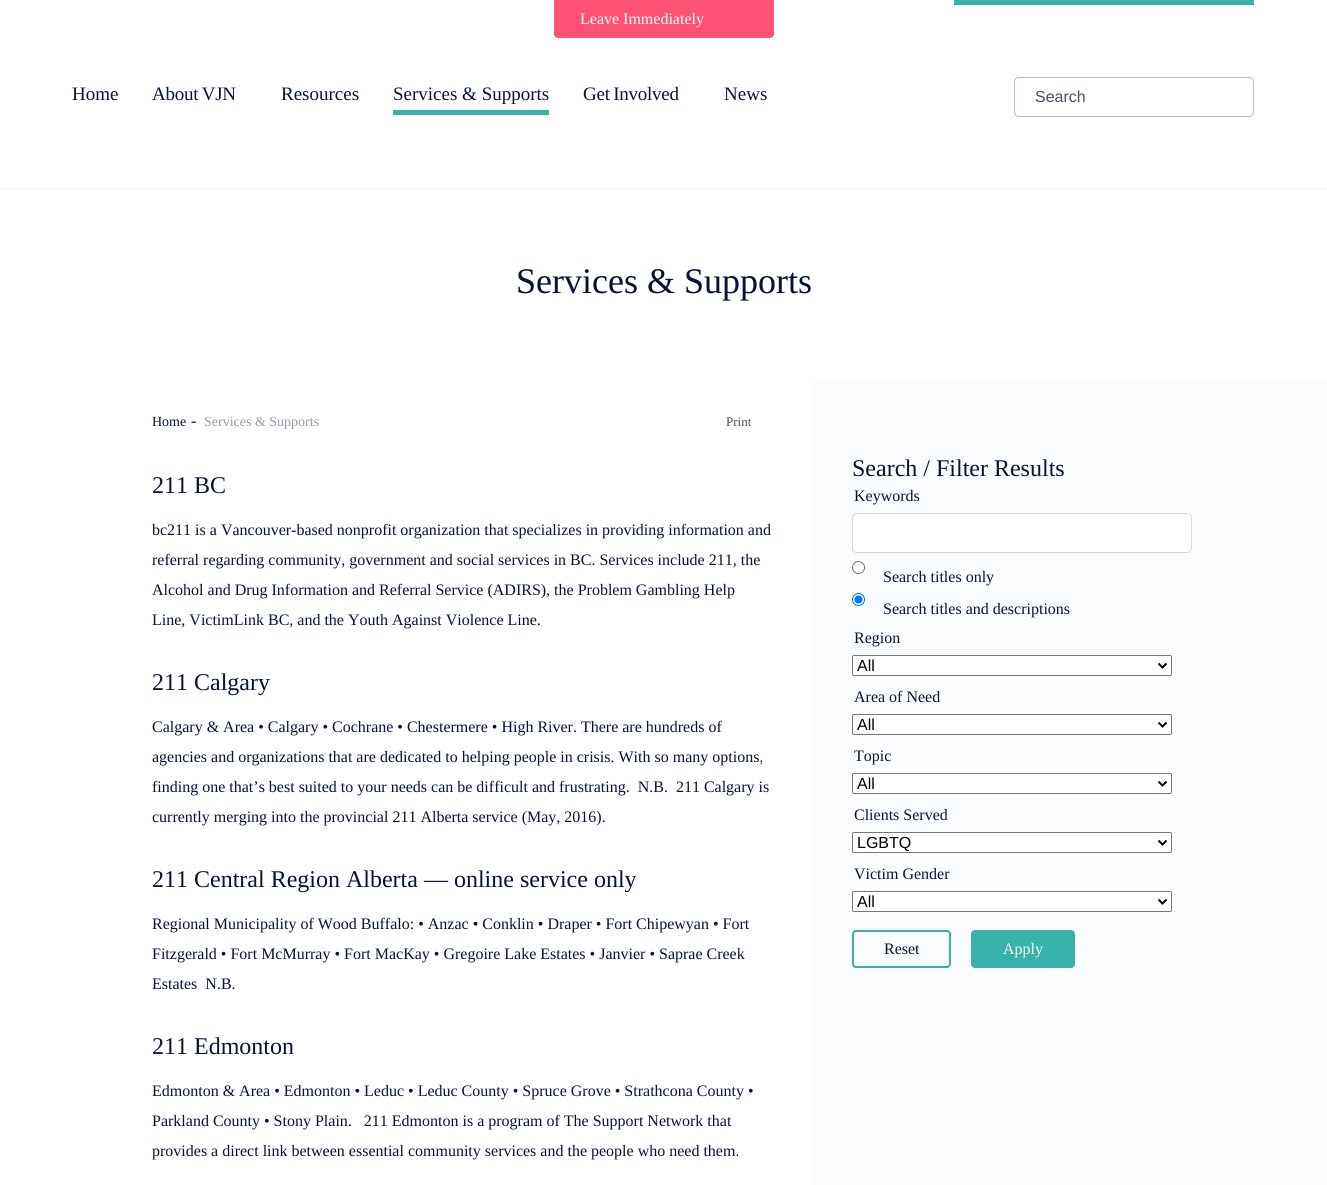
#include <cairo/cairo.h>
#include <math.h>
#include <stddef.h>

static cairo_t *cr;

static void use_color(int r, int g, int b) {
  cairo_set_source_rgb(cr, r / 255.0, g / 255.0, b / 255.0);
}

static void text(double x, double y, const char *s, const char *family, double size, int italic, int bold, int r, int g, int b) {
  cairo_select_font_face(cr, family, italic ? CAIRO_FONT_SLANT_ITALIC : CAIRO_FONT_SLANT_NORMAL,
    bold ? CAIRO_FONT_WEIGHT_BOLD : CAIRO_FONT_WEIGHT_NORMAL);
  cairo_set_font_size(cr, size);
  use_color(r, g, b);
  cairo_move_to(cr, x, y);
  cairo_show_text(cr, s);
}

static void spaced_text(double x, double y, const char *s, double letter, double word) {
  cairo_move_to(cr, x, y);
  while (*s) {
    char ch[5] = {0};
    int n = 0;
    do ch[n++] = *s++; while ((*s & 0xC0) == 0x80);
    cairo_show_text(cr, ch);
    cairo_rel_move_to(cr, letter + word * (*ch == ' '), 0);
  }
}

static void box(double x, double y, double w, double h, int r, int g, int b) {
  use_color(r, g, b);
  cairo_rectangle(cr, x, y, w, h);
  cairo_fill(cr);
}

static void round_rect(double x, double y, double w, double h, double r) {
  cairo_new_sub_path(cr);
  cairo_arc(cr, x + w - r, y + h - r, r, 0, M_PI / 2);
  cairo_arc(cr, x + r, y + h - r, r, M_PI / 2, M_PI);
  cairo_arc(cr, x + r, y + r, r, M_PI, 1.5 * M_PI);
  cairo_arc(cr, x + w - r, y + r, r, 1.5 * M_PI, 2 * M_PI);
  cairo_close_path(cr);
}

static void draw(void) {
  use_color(255, 255, 255);
  cairo_paint(cr);
  box(0, 188, 1327, 2, 245, 248, 250);
  box(954, 0, 300, 5, 55, 177, 170);
  use_color(255, 81, 114);
  cairo_new_path(cr);
  cairo_move_to(cr, 554, 0);
  cairo_line_to(cr, 774, 0);
  cairo_line_to(cr, 774, 34);
  cairo_curve_to(cr, 774, 36, 772, 38, 770, 38);
  cairo_line_to(cr, 558, 38);
  cairo_curve_to(cr, 556, 38, 554, 36, 554, 34);
  cairo_close_path(cr);
  cairo_fill(cr);
  box(393, 110, 156, 5, 55, 177, 170);
  round_rect(1014.5, 77.5, 239, 39, 4.5);
  use_color(185, 191, 200);
  cairo_set_line_width(cr, 1);
  cairo_stroke(cr);
  box(812, 380, 515, 805, 250, 252, 253);
  use_color(255, 255, 255);
  round_rect(852.5, 513.5, 339, 39, 4.5);
  cairo_fill_preserve(cr);
  use_color(208, 218, 226);
  cairo_stroke(cr);
  use_color(255, 255, 255);
  cairo_arc(cr, 858.5, 567.5, 6, 0, 2 * M_PI);
  cairo_fill_preserve(cr);
  use_color(118, 118, 118);
  cairo_stroke(cr);
  use_color(255, 255, 255);
  cairo_arc(cr, 858.5, 599.5, 6, 0, 2 * M_PI);
  cairo_fill_preserve(cr);
  use_color(0, 117, 255);
  cairo_stroke(cr);
  cairo_arc(cr, 858.5, 599.5, 4, 0, 2 * M_PI);
  cairo_fill(cr);
  use_color(255, 255, 255);
  round_rect(852.5, 655.5, 319, 20, 1.5);
  cairo_fill_preserve(cr);
  use_color(118, 118, 118);
  cairo_stroke(cr);
  cairo_new_path(cr);
  cairo_move_to(cr, 1158.5, 663.5);
  cairo_line_to(cr, 1162.5, 667.5);
  cairo_line_to(cr, 1166.5, 663.5);
  use_color(0, 0, 0);
  cairo_set_line_width(cr, 2);
  cairo_stroke(cr);
  use_color(255, 255, 255);
  round_rect(852.5, 714.5, 319, 20, 1.5);
  cairo_fill_preserve(cr);
  use_color(118, 118, 118);
  cairo_set_line_width(cr, 1);
  cairo_stroke(cr);
  cairo_new_path(cr);
  cairo_move_to(cr, 1158.5, 722.5);
  cairo_line_to(cr, 1162.5, 726.5);
  cairo_line_to(cr, 1166.5, 722.5);
  use_color(0, 0, 0);
  cairo_set_line_width(cr, 2);
  cairo_stroke(cr);
  use_color(255, 255, 255);
  round_rect(852.5, 773.5, 319, 20, 1.5);
  cairo_fill_preserve(cr);
  use_color(118, 118, 118);
  cairo_set_line_width(cr, 1);
  cairo_stroke(cr);
  cairo_new_path(cr);
  cairo_move_to(cr, 1158.5, 781.5);
  cairo_line_to(cr, 1162.5, 785.5);
  cairo_line_to(cr, 1166.5, 781.5);
  use_color(0, 0, 0);
  cairo_set_line_width(cr, 2);
  cairo_stroke(cr);
  use_color(255, 255, 255);
  round_rect(852.5, 832.5, 319, 20, 1.5);
  cairo_fill_preserve(cr);
  use_color(118, 118, 118);
  cairo_set_line_width(cr, 1);
  cairo_stroke(cr);
  cairo_new_path(cr);
  cairo_move_to(cr, 1158.5, 840.5);
  cairo_line_to(cr, 1162.5, 844.5);
  cairo_line_to(cr, 1166.5, 840.5);
  use_color(0, 0, 0);
  cairo_set_line_width(cr, 2);
  cairo_stroke(cr);
  use_color(255, 255, 255);
  round_rect(852.5, 891.5, 319, 20, 1.5);
  cairo_fill_preserve(cr);
  use_color(118, 118, 118);
  cairo_set_line_width(cr, 1);
  cairo_stroke(cr);
  cairo_new_path(cr);
  cairo_move_to(cr, 1158.5, 899.5);
  cairo_line_to(cr, 1162.5, 903.5);
  cairo_line_to(cr, 1166.5, 899.5);
  use_color(0, 0, 0);
  cairo_set_line_width(cr, 2);
  cairo_stroke(cr);
  round_rect(853, 931, 97, 36, 3);
  use_color(55, 177, 170);
  cairo_stroke(cr);
  round_rect(972, 931, 102, 36, 3);
  cairo_fill_preserve(cr);
  cairo_stroke(cr);
  text(580, 24, "Leave Immediately", "Liberation Serif", 16, 0, 0, 255, 255, 255);
  text(72, 100, "Home", "Liberation Serif", 19, 0, 0, 8, 18, 54);
  spaced_text(152, 100, "About VJN", -0.25, -1);
  text(281, 100, "Resources", "Liberation Serif", 19, 0, 0, 8, 18, 54);
  text(393, 100, "Services & Supports", "Liberation Serif", 19, 0, 0, 8, 18, 54);
  spaced_text(583, 100, "Get Involved", -0.25, -1);
  text(724, 100, "News", "Liberation Serif", 19, 0, 0, 8, 18, 54);
  text(1035, 102, "Search", "Liberation Sans", 16, 0, 0, 75, 80, 99);
  text(516, 293, "Services & Supports", "Liberation Serif", 36, 0, 0, 8, 18, 54);
  text(152, 426, "Home", "Liberation Serif", 14, 0, 0, 8, 18, 54);
  text(191, 426, "-", "Liberation Serif", 16, 0, 0, 8, 18, 54);
  text(204, 426, "Services & Supports", "Liberation Serif", 14, 0, 0, 151, 157, 176);
  text(726, 426, "Print", "Liberation Serif", 13, 0, 0, 75, 80, 99);
  text(152, 493, "211 BC", "Liberation Serif", 24, 0, 0, 8, 18, 54);
  text(152, 535, "bc211 is a Vancouver-based nonprofit organization that specializes in providing information and", "Liberation Serif", 16, 0, 0, 8, 18, 54);
  text(152, 565, "referral regarding community, government and social services in BC. Services include 211, the", "Liberation Serif", 16, 0, 0, 8, 18, 54);
  text(152, 595, "Alcohol and Drug Information and Referral Service (ADIRS), the Problem Gambling Help", "Liberation Serif", 16, 0, 0, 8, 18, 54);
  text(152, 625, "Line, VictimLink BC, and the Youth Against Violence Line.", "Liberation Serif", 16, 0, 0, 8, 18, 54);
  text(152, 690, "211 Calgary", "Liberation Serif", 24, 0, 0, 8, 18, 54);
  text(152, 732, "Calgary & Area • Calgary • Cochrane • Chestermere • High River. There are hundreds of", "Liberation Serif", 16, 0, 0, 8, 18, 54);
  text(152, 762, "agencies and organizations that are dedicated to helping people in crisis. With so many options,", "Liberation Serif", 16, 0, 0, 8, 18, 54);
  text(152, 792, "finding one that’s best suited to your needs can be difficult and frustrating.  N.B.  211 Calgary is", "Liberation Serif", 16, 0, 0, 8, 18, 54);
  text(152, 822, "currently merging into the provincial 211 Alberta service (May, 2016).", "Liberation Serif", 16, 0, 0, 8, 18, 54);
  text(152, 887, "211 Central Region Alberta — online service only", "Liberation Serif", 24, 0, 0, 8, 18, 54);
  text(152, 929, "Regional Municipality of Wood Buffalo: • Anzac • Conklin • Draper • Fort Chipewyan • Fort", "Liberation Serif", 16, 0, 0, 8, 18, 54);
  text(152, 959, "Fitzgerald • Fort McMurray • Fort MacKay • Gregoire Lake Estates • Janvier • Saprae Creek", "Liberation Serif", 16, 0, 0, 8, 18, 54);
  text(152, 989, "Estates  N.B.", "Liberation Serif", 16, 0, 0, 8, 18, 54);
  text(152, 1054, "211 Edmonton", "Liberation Serif", 24, 0, 0, 8, 18, 54);
  text(152, 1096, "Edmonton & Area • Edmonton • Leduc • Leduc County • Spruce Grove • Strathcona County •", "Liberation Serif", 16, 0, 0, 8, 18, 54);
  text(152, 1126, "Parkland County • Stony Plain.   211 Edmonton is a program of The Support Network that", "Liberation Serif", 16, 0, 0, 8, 18, 54);
  text(152, 1156, "provides a direct link between essential community services and the people who need them.", "Liberation Serif", 16, 0, 0, 8, 18, 54);
  text(852, 476, "Search / Filter Results", "Liberation Serif", 24, 0, 0, 8, 18, 54);
  text(854, 501, "Keywords", "Liberation Serif", 16, 0, 0, 8, 18, 54);
  text(883, 582, "Search titles only", "Liberation Serif", 16, 0, 0, 8, 18, 54);
  text(883, 614, "Search titles and descriptions", "Liberation Serif", 16, 0, 0, 8, 18, 54);
  text(854, 643, "Region", "Liberation Serif", 16, 0, 0, 8, 18, 54);
  text(857, 671, "All", "Liberation Sans", 16, 0, 0, 0, 0, 0);
  text(854, 702, "Area of Need", "Liberation Serif", 16, 0, 0, 8, 18, 54);
  text(857, 730, "All", "Liberation Sans", 16, 0, 0, 0, 0, 0);
  text(854, 761, "Topic", "Liberation Serif", 16, 0, 0, 8, 18, 54);
  text(857, 789, "All", "Liberation Sans", 16, 0, 0, 0, 0, 0);
  text(854, 820, "Clients Served", "Liberation Serif", 16, 0, 0, 8, 18, 54);
  text(857, 848, "LGBTQ", "Liberation Sans", 16, 0, 0, 0, 0, 0);
  text(854, 879, "Victim Gender", "Liberation Serif", 16, 0, 0, 8, 18, 54);
  text(857, 907, "All", "Liberation Sans", 16, 0, 0, 0, 0, 0);
  text(884, 954, "Reset", "Liberation Serif", 16, 0, 0, 8, 18, 54);
  text(1003, 954, "Apply", "Liberation Serif", 16, 0, 0, 255, 255, 255);
}

int main(void) {
  cairo_surface_t *surface = cairo_image_surface_create(CAIRO_FORMAT_RGB24, 1327, 1185);
  cr = cairo_create(surface);
  cairo_font_options_t *options = cairo_font_options_create();
  cairo_font_options_set_hint_metrics(options, CAIRO_HINT_METRICS_OFF);
  cairo_font_options_set_hint_style(options, CAIRO_HINT_STYLE_NONE);
  cairo_set_font_options(cr, options);
  cairo_set_miter_limit(cr, 4);
  draw();
  cairo_surface_write_to_png(surface, "out.png");
  cairo_font_options_destroy(options);
  cairo_destroy(cr);
  cairo_surface_destroy(surface);
  return 0;
}
